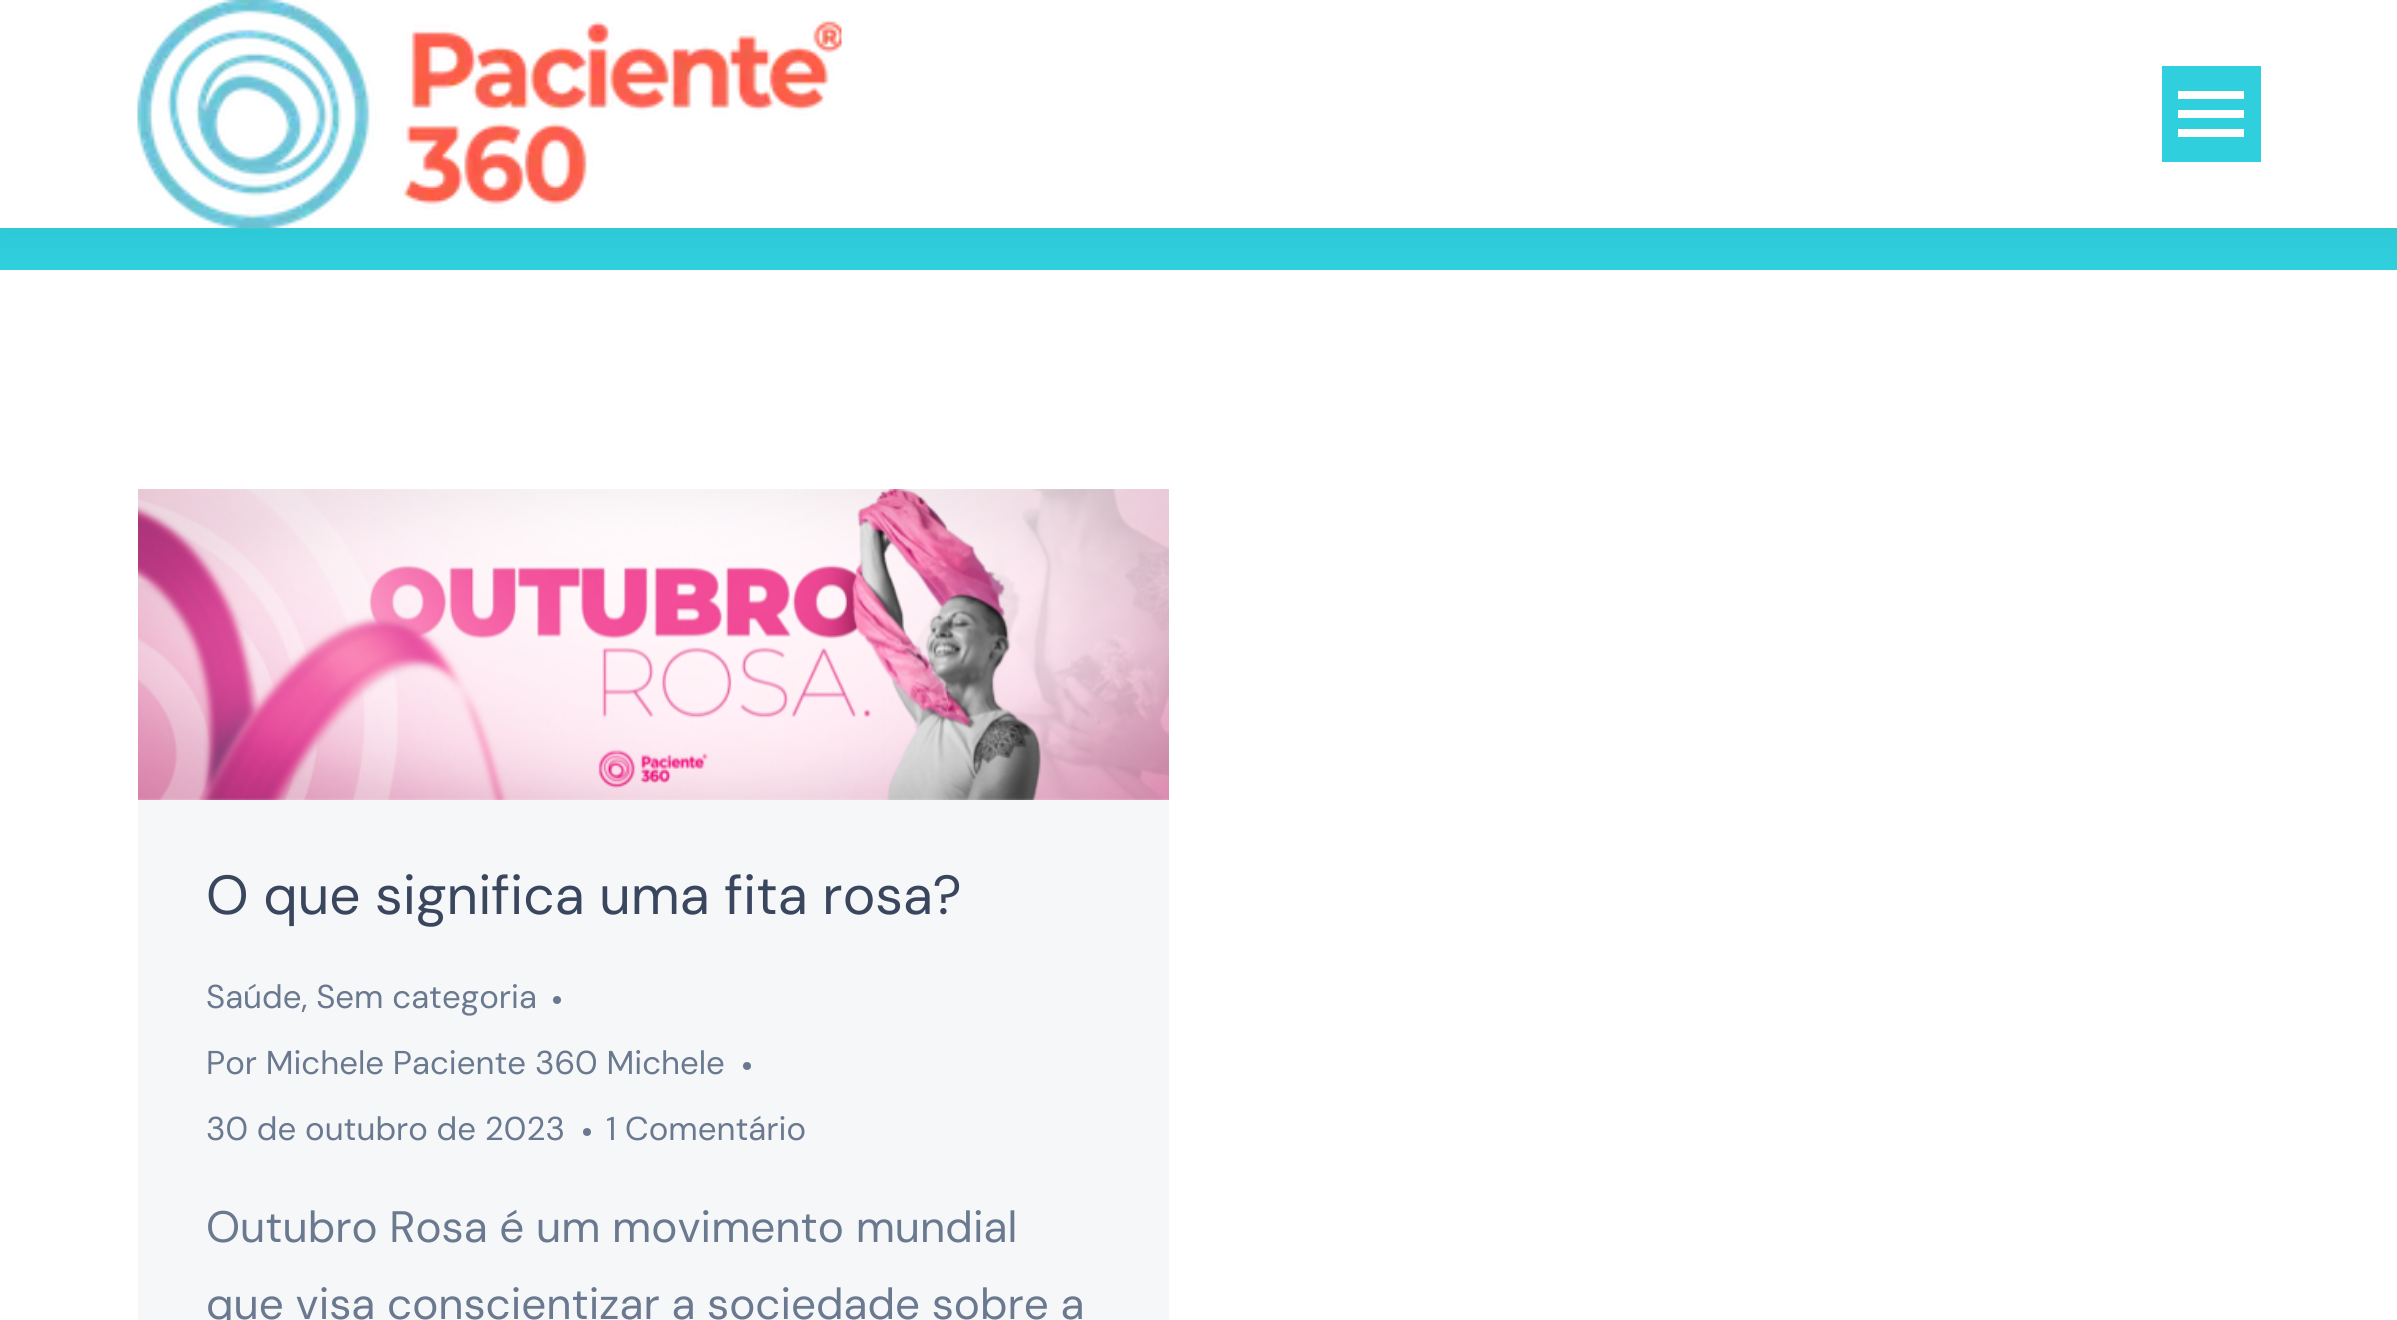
#include <cairo/cairo.h>
#include <math.h>
#include <stddef.h>

static cairo_t *cr;

static void use_color(int r, int g, int b) {
  cairo_set_source_rgb(cr, r / 255.0, g / 255.0, b / 255.0);
}

static void text(double x, double y, const char *s, const char *family, double size, int italic, int bold, int r, int g, int b) {
  cairo_select_font_face(cr, family, italic ? CAIRO_FONT_SLANT_ITALIC : CAIRO_FONT_SLANT_NORMAL,
    bold ? CAIRO_FONT_WEIGHT_BOLD : CAIRO_FONT_WEIGHT_NORMAL);
  cairo_set_font_size(cr, size);
  use_color(r, g, b);
  cairo_move_to(cr, x, y);
  cairo_show_text(cr, s);
}

static void box(double x, double y, double w, double h, int r, int g, int b) {
  use_color(r, g, b);
  cairo_rectangle(cr, x, y, w, h);
  cairo_fill(cr);
}

static void round_rect(double x, double y, double w, double h, double r) {
  cairo_new_sub_path(cr);
  cairo_arc(cr, x + w - r, y + h - r, r, 0, M_PI / 2);
  cairo_arc(cr, x + r, y + h - r, r, M_PI / 2, M_PI);
  cairo_arc(cr, x + r, y + r, r, M_PI, 1.5 * M_PI);
  cairo_arc(cr, x + w - r, y + r, r, 1.5 * M_PI, 2 * M_PI);
  cairo_close_path(cr);
}

static void shadow(double x, double y, double w, double h, double r, double blur, double alpha) {
  cairo_push_group_with_content(cr, CAIRO_CONTENT_ALPHA);
  cairo_set_operator(cr, CAIRO_OPERATOR_SOURCE);
  for (int i = 15; i >= -15 && fmin(w, h) + blur * i / 3 > 0; i -= 2) {
    double e = blur * i / 6;
    cairo_set_source_rgba(cr, 0, 0, 0, alpha * erfc((i - 1) / 8.5) / 2);
    round_rect(x - e, y - e, w + 2 * e, h + 2 * e, fmax(0, fmin(r + e + blur * .6, fmin(w, h) / 2 + e)));
    cairo_fill(cr);
  }
  cairo_pattern_t *soft = cairo_pop_group(cr);
  cairo_mask(cr, soft);
  cairo_pattern_destroy(soft);
}

static void picture(const char *path, double x, double y, double w, double h) {
  cairo_surface_t *image = cairo_image_surface_create_from_png(path);
  cairo_save(cr);
  cairo_set_source_surface(cr, image, x, y);
  cairo_rectangle(cr, x, y, w, h);
  cairo_fill(cr);
  cairo_restore(cr);
  cairo_surface_destroy(image);
}

static void draw(void) {
  use_color(255, 255, 255);
  cairo_paint(cr);
  box(0, 228, 2397, 42, 47, 207, 222);
  use_color(0, 0, 0);
  shadow(-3, -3, 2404, 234, 0, 20.5, 0.07);
  box(0, 0, 2397, 228, 255, 255, 255);
  picture("img_01.png", 137, 0, 705, 229);
  box(2162, 66, 99, 96, 47, 207, 222);
  box(2178, 91, 66, 8, 255, 255, 255);
  box(2178, 110, 66, 8, 255, 255, 255);
  box(2178, 129, 66, 8, 255, 255, 255);
  box(138, 798, 1031, 522, 246, 247, 248);
  picture("img_02.png", 138, 489, 1031, 311);
  use_color(106, 121, 144);
  cairo_arc(cr, 557, 1000, 4, 0, 2 * M_PI);
  cairo_fill(cr);
  cairo_arc(cr, 747, 1066, 4, 0, 2 * M_PI);
  cairo_fill(cr);
  cairo_arc(cr, 587, 1132, 4, 0, 2 * M_PI);
  cairo_fill(cr);
  text(206, 914, "O que significa uma fita rosa?", "DM Sans", 55, 0, 0, 57, 70, 93);
  text(206, 1008, "Saúde, Sem categoria", "DM Sans", 33, 0, 0, 106, 121, 144);
  text(206, 1074, "Por Michele Paciente 360 Michele", "DM Sans", 33, 0, 0, 106, 121, 144);
  text(206, 1140, "30 de outubro de 2023", "DM Sans", 33, 0, 0, 106, 121, 144);
  text(606, 1140, "1 Comentário", "DM Sans", 33, 0, 0, 106, 121, 144);
  text(206, 1242, "Outubro Rosa é um movimento mundial", "DM Sans", 44, 0, 0, 106, 121, 144);
  text(206, 1319, "que visa conscientizar a sociedade sobre a", "DM Sans", 44, 0, 0, 106, 121, 144);
}

int main(void) {
  cairo_surface_t *surface = cairo_image_surface_create(CAIRO_FORMAT_RGB24, 2397, 1320);
  cr = cairo_create(surface);
  cairo_font_options_t *options = cairo_font_options_create();
  cairo_font_options_set_hint_metrics(options, CAIRO_HINT_METRICS_OFF);
  cairo_font_options_set_hint_style(options, CAIRO_HINT_STYLE_NONE);
  cairo_set_font_options(cr, options);
  cairo_set_miter_limit(cr, 4);
  draw();
  cairo_surface_write_to_png(surface, "out.png");
  cairo_font_options_destroy(options);
  cairo_destroy(cr);
  cairo_surface_destroy(surface);
  return 0;
}
